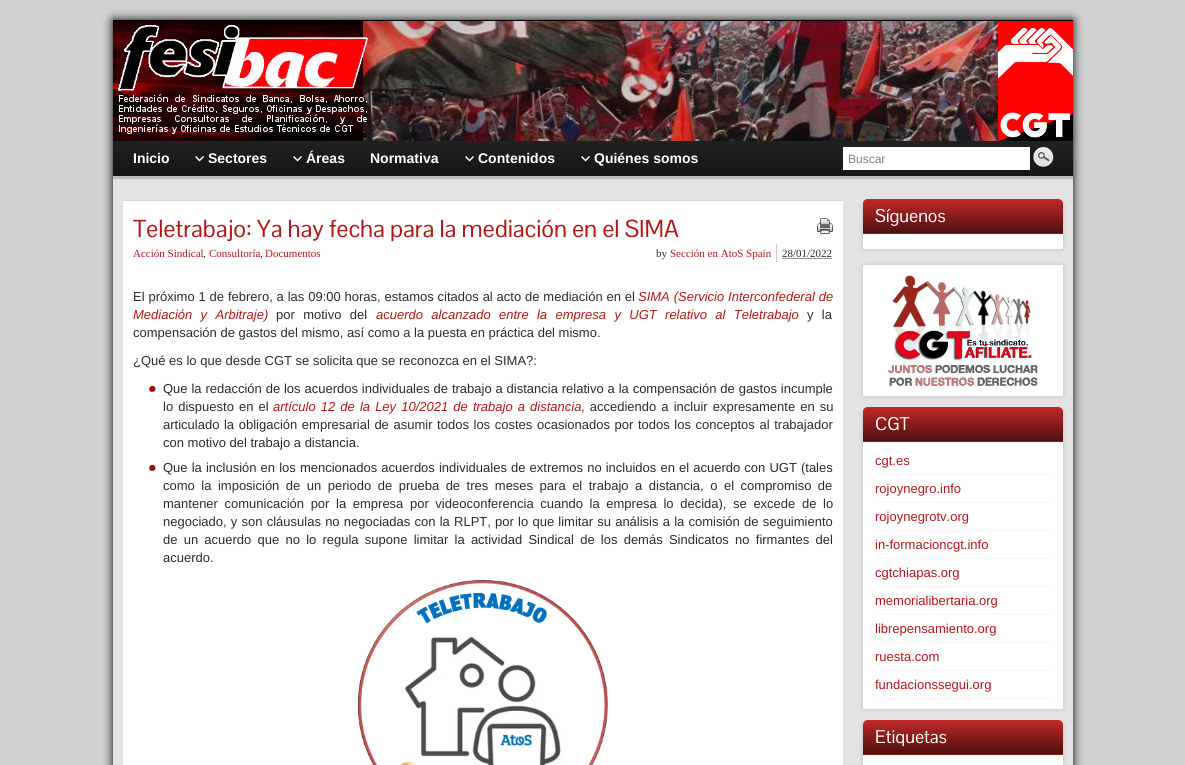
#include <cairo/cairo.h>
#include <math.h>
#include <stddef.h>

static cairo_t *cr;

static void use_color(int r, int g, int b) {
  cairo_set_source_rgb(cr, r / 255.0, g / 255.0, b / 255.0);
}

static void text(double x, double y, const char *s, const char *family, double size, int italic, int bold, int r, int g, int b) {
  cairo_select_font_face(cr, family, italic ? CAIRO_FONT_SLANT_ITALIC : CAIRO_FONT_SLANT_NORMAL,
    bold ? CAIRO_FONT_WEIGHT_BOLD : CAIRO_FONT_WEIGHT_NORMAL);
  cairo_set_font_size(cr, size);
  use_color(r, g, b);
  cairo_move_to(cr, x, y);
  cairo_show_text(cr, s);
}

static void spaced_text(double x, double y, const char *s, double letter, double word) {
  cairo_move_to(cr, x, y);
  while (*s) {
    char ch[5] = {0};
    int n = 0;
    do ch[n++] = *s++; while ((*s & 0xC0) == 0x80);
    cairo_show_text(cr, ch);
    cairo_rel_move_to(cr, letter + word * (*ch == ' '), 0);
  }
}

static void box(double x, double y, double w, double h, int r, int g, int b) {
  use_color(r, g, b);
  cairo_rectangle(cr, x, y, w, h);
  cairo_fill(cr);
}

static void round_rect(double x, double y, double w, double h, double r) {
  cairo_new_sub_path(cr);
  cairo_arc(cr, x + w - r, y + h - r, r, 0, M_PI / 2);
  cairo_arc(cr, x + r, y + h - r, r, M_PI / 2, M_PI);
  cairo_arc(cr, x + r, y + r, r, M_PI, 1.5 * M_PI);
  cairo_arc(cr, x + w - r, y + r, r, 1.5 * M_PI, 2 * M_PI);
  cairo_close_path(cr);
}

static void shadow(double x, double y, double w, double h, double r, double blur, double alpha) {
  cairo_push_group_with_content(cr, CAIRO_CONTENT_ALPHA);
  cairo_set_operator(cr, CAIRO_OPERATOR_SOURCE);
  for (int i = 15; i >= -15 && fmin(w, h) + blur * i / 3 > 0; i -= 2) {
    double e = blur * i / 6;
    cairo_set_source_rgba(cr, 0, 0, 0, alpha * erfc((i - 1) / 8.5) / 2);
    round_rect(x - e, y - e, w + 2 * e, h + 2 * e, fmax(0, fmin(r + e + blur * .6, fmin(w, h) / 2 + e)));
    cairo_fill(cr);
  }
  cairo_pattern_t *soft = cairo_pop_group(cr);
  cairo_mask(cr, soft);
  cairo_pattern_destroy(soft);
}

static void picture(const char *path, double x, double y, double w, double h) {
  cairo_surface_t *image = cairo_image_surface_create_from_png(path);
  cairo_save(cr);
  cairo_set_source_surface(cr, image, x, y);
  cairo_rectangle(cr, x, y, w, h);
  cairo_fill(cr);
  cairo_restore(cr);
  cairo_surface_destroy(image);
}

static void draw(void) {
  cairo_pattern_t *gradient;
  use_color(209, 209, 209);
  cairo_paint(cr);
  use_color(0, 0, 0);
  shadow(113, 20, 960, 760, 0, 5, 1);
  box(113, 20, 960, 1, 0, 0, 0);
  picture("img_01.png", 113, 21, 960, 120);
  picture("img_02.png", 113, 141, 960, 35);
  picture("img_03.png", 195, 156, 9, 6);
  picture("img_03.png", 293, 156, 9, 6);
  picture("img_03.png", 465, 156, 9, 6);
  picture("img_03.png", 581, 156, 9, 6);
  box(843, 147, 187, 23, 255, 255, 255);
  picture("img_04.png", 1033, 147, 21, 22);
  box(113, 176, 960, 3, 186, 186, 186);
  box(113, 179, 960, 586, 227, 227, 227);
  box(123, 201, 720, 564, 255, 255, 255);
  box(123, 200, 720, 1, 216, 216, 216);
  picture("img_05.png", 817, 218, 16, 16);
  box(776, 244, 1, 18, 204, 204, 204);
  cairo_new_path(cr);
  cairo_move_to(cr, 782.5, 258.5);
  cairo_line_to(cr, 832.5, 258.5);
  use_color(44, 43, 43);
  cairo_set_line_width(cr, 1);
  cairo_set_dash(cr, (double[]){1, 1}, 2, 0);
  cairo_stroke(cr);
  picture("img_06.png", 148, 386, 8, 6);
  picture("img_06.png", 148, 465, 8, 6);
  picture("img_07.png", 358, 580, 250, 185);
  use_color(0, 0, 0);
  shadow(863, 204, 200, 45, 0, 2.5, 0.15);
  box(863, 234, 200, 15, 255, 255, 255);
  gradient = cairo_pattern_create_linear(963, 199, 963, 233);
  cairo_pattern_add_color_stop_rgba(gradient, 0, 0.765, 0.157, 0.157, 1);
  cairo_pattern_add_color_stop_rgba(gradient, 1, 0.302, 0.059, 0.059, 1);
  cairo_set_source(cr, gradient);
  cairo_pattern_destroy(gradient);
  cairo_new_path(cr);
  cairo_move_to(cr, 868, 199);
  cairo_line_to(cr, 1058, 199);
  cairo_curve_to(cr, 1061, 199, 1063, 201, 1063, 204);
  cairo_line_to(cr, 1063, 233);
  cairo_line_to(cr, 863, 233);
  cairo_line_to(cr, 863, 204);
  cairo_curve_to(cr, 863, 201, 865, 199, 868, 199);
  cairo_close_path(cr);
  cairo_fill(cr);
  box(863, 233, 200, 1, 146, 25, 25);
  use_color(0, 0, 0);
  shadow(863, 265, 200, 131, 0, 2.5, 0.15);
  box(863, 265, 200, 131, 255, 255, 255);
  picture("img_08.png", 888, 275, 150, 111);
  use_color(0, 0, 0);
  shadow(863, 412, 200, 297, 0, 2.5, 0.15);
  box(863, 442, 200, 267, 255, 255, 255);
  gradient = cairo_pattern_create_linear(963, 407, 963, 441);
  cairo_pattern_add_color_stop_rgba(gradient, 0, 0.765, 0.157, 0.157, 1);
  cairo_pattern_add_color_stop_rgba(gradient, 1, 0.302, 0.059, 0.059, 1);
  cairo_set_source(cr, gradient);
  cairo_pattern_destroy(gradient);
  cairo_new_path(cr);
  cairo_move_to(cr, 868, 407);
  cairo_line_to(cr, 1058, 407);
  cairo_curve_to(cr, 1061, 407, 1063, 409, 1063, 412);
  cairo_line_to(cr, 1063, 441);
  cairo_line_to(cr, 863, 441);
  cairo_line_to(cr, 863, 412);
  cairo_curve_to(cr, 863, 409, 865, 407, 868, 407);
  cairo_close_path(cr);
  cairo_fill(cr);
  box(863, 441, 200, 1, 146, 25, 25);
  box(875, 474, 176, 1, 245, 245, 245);
  box(875, 502, 176, 1, 245, 245, 245);
  box(875, 530, 176, 1, 245, 245, 245);
  box(875, 558, 176, 1, 245, 245, 245);
  box(875, 586, 176, 1, 245, 245, 245);
  box(875, 614, 176, 1, 245, 245, 245);
  box(875, 642, 176, 1, 245, 245, 245);
  box(875, 670, 176, 1, 245, 245, 245);
  box(875, 698, 176, 1, 245, 245, 245);
  use_color(0, 0, 0);
  shadow(863, 725, 200, 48, 0, 2.5, 0.15);
  box(863, 755, 200, 10, 255, 255, 255);
  gradient = cairo_pattern_create_linear(963, 720, 963, 754);
  cairo_pattern_add_color_stop_rgba(gradient, 0, 0.765, 0.157, 0.157, 1);
  cairo_pattern_add_color_stop_rgba(gradient, 1, 0.302, 0.059, 0.059, 1);
  cairo_set_source(cr, gradient);
  cairo_pattern_destroy(gradient);
  cairo_new_path(cr);
  cairo_move_to(cr, 868, 720);
  cairo_line_to(cr, 1058, 720);
  cairo_curve_to(cr, 1061, 720, 1063, 722, 1063, 725);
  cairo_line_to(cr, 1063, 754);
  cairo_line_to(cr, 863, 754);
  cairo_line_to(cr, 863, 725);
  cairo_curve_to(cr, 863, 722, 865, 720, 868, 720);
  cairo_close_path(cr);
  cairo_fill(cr);
  box(863, 754, 200, 1, 146, 25, 25);
  text(133, 163, "Inicio", "Liberation Sans", 14, 0, 1, 255, 255, 255);
  text(208, 163, "Sectores", "Liberation Sans", 14, 0, 1, 255, 255, 255);
  text(306, 163, "Áreas", "Liberation Sans", 14, 0, 1, 255, 255, 255);
  text(370, 163, "Normativa", "Liberation Sans", 14, 0, 1, 255, 255, 255);
  text(478, 163, "Contenidos", "Liberation Sans", 14, 0, 1, 255, 255, 255);
  text(594, 163, "Quiénes somos", "Liberation Sans", 14, 0, 1, 255, 255, 255);
  text(848, 163, "Buscar", "Liberation Sans", 12, 0, 0, 128, 128, 128);
  text(133, 237, "Teletrabajo: Ya hay fecha para la mediación en el SIMA", "Pontano Sans", 24, 0, 0, 175, 24, 23);
  text(133, 257, "Acción Sindical", "Liberation Serif", 11, 0, 0, 175, 24, 23);
  text(203, 257, ",", "Liberation Serif", 11, 0, 0, 44, 43, 43);
  text(209, 257, "Consultoría", "Liberation Serif", 11, 0, 0, 175, 24, 23);
  text(260, 257, ",", "Liberation Serif", 11, 0, 0, 44, 43, 43);
  text(265, 257, "Documentos", "Liberation Serif", 11, 0, 0, 175, 24, 23);
  text(656, 257, "by", "Liberation Serif", 11, 0, 0, 44, 43, 43);
  text(670, 257, "Sección en AtoS Spain", "Liberation Serif", 11, 0, 0, 175, 24, 23);
  text(782, 257, "28/01/2022", "Liberation Serif", 11, 0, 0, 44, 43, 43);
  cairo_select_font_face(cr, "Liberation Sans", CAIRO_FONT_SLANT_NORMAL, CAIRO_FONT_WEIGHT_NORMAL);
  cairo_set_font_size(cr, 13);
  spaced_text(133, 301, "El próximo 1 de febrero, a las 09:00 horas, estamos citados al acto de mediación en el", 0, 0.25);
  cairo_select_font_face(cr, "Liberation Sans", CAIRO_FONT_SLANT_ITALIC, CAIRO_FONT_WEIGHT_NORMAL);
  use_color(175, 24, 23);
  spaced_text(638, 301, "SIMA (Servicio Interconfederal de", 0, 0.25);
  spaced_text(133, 319, "Mediación y Arbitraje)", 0, 4.75);
  cairo_select_font_face(cr, "Liberation Sans", CAIRO_FONT_SLANT_NORMAL, CAIRO_FONT_WEIGHT_NORMAL);
  use_color(44, 43, 43);
  spaced_text(276, 319, "por motivo del", 0, 4.75);
  cairo_select_font_face(cr, "Liberation Sans", CAIRO_FONT_SLANT_ITALIC, CAIRO_FONT_WEIGHT_NORMAL);
  use_color(175, 24, 23);
  spaced_text(376, 319, "acuerdo alcanzado entre la empresa y UGT relativo al Teletrabajo", 0, 4.75);
  cairo_select_font_face(cr, "Liberation Sans", CAIRO_FONT_SLANT_NORMAL, CAIRO_FONT_WEIGHT_NORMAL);
  use_color(44, 43, 43);
  spaced_text(807, 319, "y la", 0, 4.75);
  text(133, 337, "compensación de gastos del mismo, así como a la puesta en práctica del mismo.", "Liberation Sans", 13, 0, 0, 44, 43, 43);
  text(133, 365, "¿Qué es lo que desde CGT se solicita que se reconozca en el SIMA?:", "Liberation Sans", 13, 0, 0, 44, 43, 43);
  spaced_text(163, 393, "Que la redacción de los acuerdos individuales de trabajo a distancia relativo a la compensación de gastos incumple", 0, 0.25);
  spaced_text(163, 411, "lo dispuesto en el", 0, 1.5);
  cairo_select_font_face(cr, "Liberation Sans", CAIRO_FONT_SLANT_ITALIC, CAIRO_FONT_WEIGHT_NORMAL);
  use_color(175, 24, 23);
  spaced_text(273, 411, "artículo 12 de la Ley 10/2021 de trabajo a distancia", 0, 1.5);
  cairo_select_font_face(cr, "Liberation Sans", CAIRO_FONT_SLANT_NORMAL, CAIRO_FONT_WEIGHT_NORMAL);
  use_color(44, 43, 43);
  spaced_text(581, 411, ", accediendo a incluir expresamente en su", 0, 1.5);
  spaced_text(163, 429, "articulado la obligación empresarial de asumir todos los costes ocasionados por todos los conceptos al trabajador", 0, 1);
  text(163, 447, "con motivo del trabajo a distancia.", "Liberation Sans", 13, 0, 0, 44, 43, 43);
  spaced_text(163, 472, "Que la inclusión en los mencionados acuerdos individuales de extremos no incluidos en el acuerdo con UGT (tales", 0, 0.5);
  spaced_text(163, 490, "como la imposición de un periodo de prueba de tres meses para el trabajo a distancia, o el compromiso de", 0, 2.9);
  spaced_text(163, 508, "mantener comunicación por la empresa por videoconferencia cuando la empresa lo decida), se excede de lo", 0, 3);
  spaced_text(163, 526, "negociado, y son cláusulas no negociadas con la RLPT, por lo que limitar su análisis a la comisión de seguimiento", 0, 0.6);
  spaced_text(163, 544, "de un acuerdo que no lo regula supone limitar la actividad Sindical de los demás Sindicatos no firmantes del", 0, 2.6);
  text(163, 562, "acuerdo.", "Liberation Sans", 13, 0, 0, 44, 43, 43);
  text(875, 222, "Síguenos", "Pontano Sans", 18, 0, 0, 255, 255, 255);
  text(875, 430, "CGT", "Pontano Sans", 18, 0, 0, 255, 255, 255);
  text(875, 465, "cgt.es", "Liberation Sans", 13, 0, 0, 175, 24, 23);
  text(875, 493, "rojoynegro.info", "Liberation Sans", 13, 0, 0, 175, 24, 23);
  text(875, 521, "rojoynegrotv.org", "Liberation Sans", 13, 0, 0, 175, 24, 23);
  text(875, 549, "in-formacioncgt.info", "Liberation Sans", 13, 0, 0, 175, 24, 23);
  text(875, 577, "cgtchiapas.org", "Liberation Sans", 13, 0, 0, 175, 24, 23);
  text(875, 605, "memorialibertaria.org", "Liberation Sans", 13, 0, 0, 175, 24, 23);
  text(875, 633, "librepensamiento.org", "Liberation Sans", 13, 0, 0, 175, 24, 23);
  text(875, 661, "ruesta.com", "Liberation Sans", 13, 0, 0, 175, 24, 23);
  text(875, 689, "fundacionssegui.org", "Liberation Sans", 13, 0, 0, 175, 24, 23);
  text(875, 743, "Etiquetas", "Pontano Sans", 18, 0, 0, 255, 255, 255);
}

int main(void) {
  cairo_surface_t *surface = cairo_image_surface_create(CAIRO_FORMAT_RGB24, 1185, 765);
  cr = cairo_create(surface);
  cairo_font_options_t *options = cairo_font_options_create();
  cairo_font_options_set_hint_metrics(options, CAIRO_HINT_METRICS_OFF);
  cairo_font_options_set_hint_style(options, CAIRO_HINT_STYLE_NONE);
  cairo_set_font_options(cr, options);
  cairo_set_miter_limit(cr, 4);
  draw();
  cairo_surface_write_to_png(surface, "out.png");
  cairo_font_options_destroy(options);
  cairo_destroy(cr);
  cairo_surface_destroy(surface);
  return 0;
}
